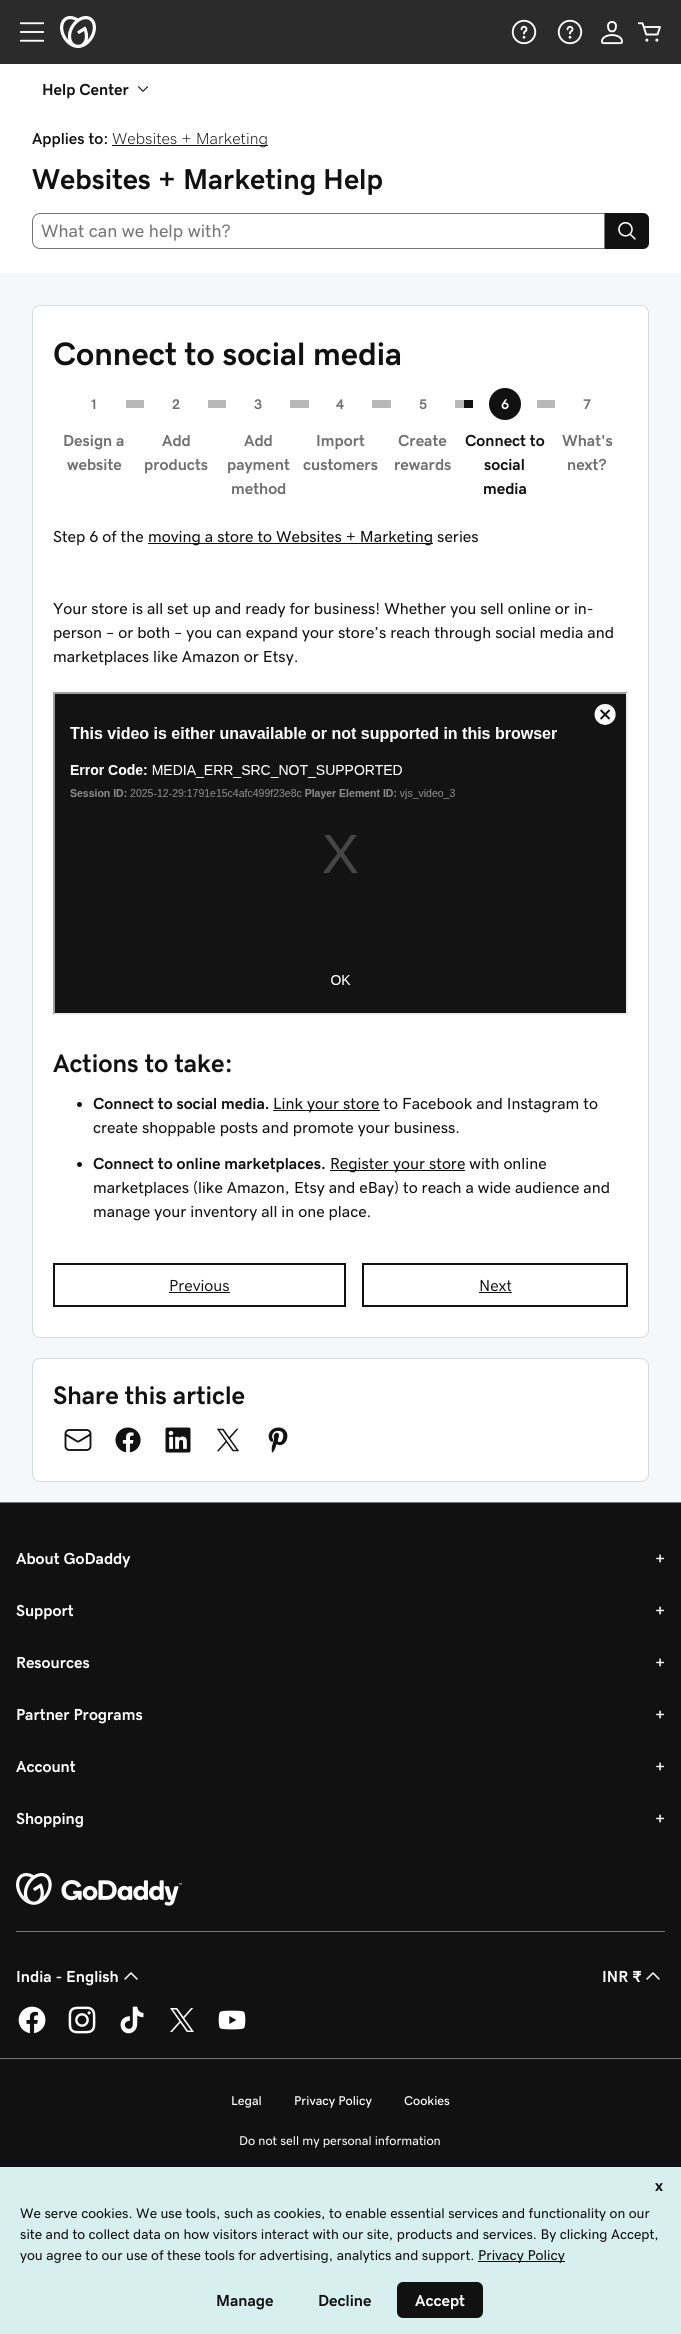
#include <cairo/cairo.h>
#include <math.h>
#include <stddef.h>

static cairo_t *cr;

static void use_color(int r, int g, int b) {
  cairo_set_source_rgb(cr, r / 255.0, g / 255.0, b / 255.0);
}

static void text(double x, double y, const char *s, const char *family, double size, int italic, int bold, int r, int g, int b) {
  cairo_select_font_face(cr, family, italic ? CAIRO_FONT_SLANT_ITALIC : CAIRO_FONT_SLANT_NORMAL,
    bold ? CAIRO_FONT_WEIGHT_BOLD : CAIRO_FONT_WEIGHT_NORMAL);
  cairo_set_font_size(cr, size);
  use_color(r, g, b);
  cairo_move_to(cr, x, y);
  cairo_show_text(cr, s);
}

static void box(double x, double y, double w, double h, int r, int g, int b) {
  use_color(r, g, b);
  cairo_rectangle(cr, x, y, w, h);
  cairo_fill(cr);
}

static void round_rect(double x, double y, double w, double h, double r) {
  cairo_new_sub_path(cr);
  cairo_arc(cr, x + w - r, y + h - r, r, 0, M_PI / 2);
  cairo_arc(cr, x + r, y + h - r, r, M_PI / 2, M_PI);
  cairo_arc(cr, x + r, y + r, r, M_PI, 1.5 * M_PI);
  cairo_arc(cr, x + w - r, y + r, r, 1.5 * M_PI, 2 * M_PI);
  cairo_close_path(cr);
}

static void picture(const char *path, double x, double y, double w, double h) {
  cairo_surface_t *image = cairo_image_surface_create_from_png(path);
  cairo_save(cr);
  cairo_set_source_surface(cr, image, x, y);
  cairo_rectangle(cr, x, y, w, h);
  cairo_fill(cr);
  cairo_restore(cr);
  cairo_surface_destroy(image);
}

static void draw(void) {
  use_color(255, 255, 255);
  cairo_paint(cr);
  box(0, 0, 681, 64, 43, 43, 43);
  picture("img_01.png", 19, 22, 26, 20);
  picture("img_02.png", 60, 16, 36, 32);
  picture("img_03.png", 511, 19, 26, 26);
  picture("img_03.png", 557, 19, 26, 26);
  picture("img_04.png", 601, 21, 22, 24);
  picture("img_05.png", 637, 22, 24, 20);
  picture("img_06.png", 138, 86, 10, 6);
  box(112, 145, 156, 1, 17, 17, 17);
  cairo_new_path(cr);
  cairo_move_to(cr, 40, 213.5);
  cairo_line_to(cr, 604.5, 213.5);
  cairo_line_to(cr, 604.5, 248.5);
  cairo_line_to(cr, 40, 248.5);
  cairo_curve_to(cr, 36, 248.5, 32.5, 245, 32.5, 241);
  cairo_line_to(cr, 32.5, 221);
  cairo_curve_to(cr, 32.5, 217, 36, 213.5, 40, 213.5);
  cairo_close_path(cr);
  use_color(118, 118, 118);
  cairo_set_line_width(cr, 1);
  cairo_stroke(cr);
  use_color(17, 17, 17);
  cairo_new_path(cr);
  cairo_move_to(cr, 605, 213);
  cairo_line_to(cr, 643, 213);
  cairo_curve_to(cr, 646.5, 213, 649, 215.5, 649, 219);
  cairo_line_to(cr, 649, 243);
  cairo_curve_to(cr, 649, 246.5, 646.5, 249, 643, 249);
  cairo_line_to(cr, 605, 249);
  cairo_close_path(cr);
  cairo_fill(cr);
  picture("img_07.png", 618, 222, 18, 18);
  box(0, 273, 681, 1229, 245, 247, 248);
  use_color(255, 255, 255);
  round_rect(32.5, 305.5, 616, 1032, 7.5);
  cairo_fill_preserve(cr);
  use_color(212, 219, 224);
  cairo_stroke(cr);
  box(126, 400, 18, 8, 184, 184, 184);
  box(208, 400, 18, 8, 184, 184, 184);
  box(290, 400, 19, 8, 184, 184, 184);
  box(372, 400, 19, 8, 184, 184, 184);
  box(455, 400, 9, 8, 184, 184, 184);
  use_color(17, 17, 17);
  cairo_arc(cr, 505, 404, 16, 0, 2 * M_PI);
  cairo_fill(cr);
  box(464, 400, 9, 8, 17, 17, 17);
  box(537, 400, 18, 8, 184, 184, 184);
  box(148, 543, 285, 1, 17, 17, 17);
  use_color(159, 159, 159);
  cairo_new_path(cr);
  cairo_move_to(cr, 53, 692);
  cairo_line_to(cr, 628, 692);
  cairo_line_to(cr, 626, 694);
  cairo_line_to(cr, 55, 694);
  cairo_close_path(cr);
  cairo_fill(cr);
  use_color(238, 238, 238);
  cairo_new_path(cr);
  cairo_move_to(cr, 628, 692);
  cairo_line_to(cr, 628, 1015);
  cairo_line_to(cr, 626, 1013);
  cairo_line_to(cr, 626, 694);
  cairo_close_path(cr);
  cairo_fill(cr);
  cairo_new_path(cr);
  cairo_move_to(cr, 628, 1015);
  cairo_line_to(cr, 53, 1015);
  cairo_line_to(cr, 55, 1013);
  cairo_line_to(cr, 626, 1013);
  cairo_close_path(cr);
  cairo_fill(cr);
  use_color(159, 159, 159);
  cairo_new_path(cr);
  cairo_move_to(cr, 53, 1015);
  cairo_line_to(cr, 53, 692);
  cairo_line_to(cr, 55, 694);
  cairo_line_to(cr, 55, 1013);
  cairo_close_path(cr);
  cairo_fill(cr);
  picture("img_08.png", 55, 694, 571, 319);
  use_color(17, 17, 17);
  cairo_arc(cr, 79.5, 1104.5, 2.5, 0, 2 * M_PI);
  cairo_fill(cr);
  box(273, 1110, 107, 1, 17, 17, 17);
  cairo_arc(cr, 79.5, 1164.5, 2.5, 0, 2 * M_PI);
  cairo_fill(cr);
  box(330, 1170, 135, 1, 17, 17, 17);
  cairo_rectangle(cr, 54, 1264, 291, 42);
  cairo_set_line_width(cr, 2);
  cairo_stroke(cr);
  box(169, 1292, 61, 1, 17, 17, 17);
  cairo_rectangle(cr, 363, 1264, 264, 42);
  cairo_stroke(cr);
  box(479, 1292, 33, 1, 17, 17, 17);
  use_color(255, 255, 255);
  round_rect(32.5, 1358.5, 616, 123, 7.5);
  cairo_fill_preserve(cr);
  use_color(212, 219, 224);
  cairo_set_line_width(cr, 1);
  cairo_stroke(cr);
  picture("img_09.png", 64, 1429, 28, 22);
  picture("img_10.png", 115, 1427, 26, 26);
  picture("img_11.png", 165, 1427, 26, 26);
  picture("img_12.png", 216, 1428, 24, 24);
  picture("img_13.png", 268, 1427, 20, 26);
  box(0, 1503, 681, 555, 17, 17, 17);
  box(0, 1502, 681, 1, 118, 118, 118);
  picture("img_14.png", 16, 1873, 166, 33);
  box(16, 1931, 649, 1, 118, 118, 118);
  picture("img_15.png", 124, 1972, 14, 8);
  picture("img_15.png", 646, 1972, 14, 8);
  picture("img_16.png", 18, 2006, 28, 28);
  picture("img_17.png", 68, 2006, 28, 28);
  picture("img_18.png", 120, 2006, 24, 28);
  picture("img_19.png", 170, 2008, 24, 24);
  picture("img_20.png", 218, 2010, 28, 20);
  box(0, 2059, 681, 108, 17, 17, 17);
  box(0, 2058, 681, 1, 118, 118, 118);
  box(0, 2167, 681, 167, 216, 239, 239);
  box(478, 2261, 87, 1, 17, 17, 17);
  round_rect(397, 2282, 86, 36, 6);
  cairo_fill(cr);
  text(42, 95, "Help Center", "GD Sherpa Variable", 16, 0, 1, 17, 17, 17);
  text(32, 144, "Applies to:", "GD Sherpa Variable SemiBold", 16, 0, 0, 17, 17, 17);
  text(112, 144, "Websites + Marketing", "GD Sherpa Variable ExtraLight", 16, 0, 0, 17, 17, 17);
  text(32, 189, "Websites + Marketing Help", "GD Sherpa Variable", 28.75, 0, 1, 17, 17, 17);
  text(41, 237, "What can we help with?", "GD Sherpa Variable", 18, 0, 0, 118, 118, 118);
  text(53, 365, "Connect to social media", "GD Sherpa Variable ExtraBold", 32.5, 0, 0, 17, 17, 17);
  text(91, 409, "1", "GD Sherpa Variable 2", 14, 0, 1, 112, 112, 112);
  text(63, 446, "Design a", "GD Sherpa Variable 2", 16, 0, 1, 112, 112, 112);
  text(67, 470, "website", "GD Sherpa Variable 2", 16, 0, 1, 112, 112, 112);
  text(172, 409, "2", "GD Sherpa Variable 2", 14, 0, 1, 112, 112, 112);
  text(162, 446, "Add", "GD Sherpa Variable 2", 16, 0, 1, 112, 112, 112);
  text(144, 470, "products", "GD Sherpa Variable 2", 16, 0, 1, 112, 112, 112);
  text(254, 409, "3", "GD Sherpa Variable 2", 14, 0, 1, 112, 112, 112);
  text(244, 446, "Add", "GD Sherpa Variable 2", 16, 0, 1, 112, 112, 112);
  text(227, 470, "payment", "GD Sherpa Variable 2", 16, 0, 1, 112, 112, 112);
  text(231, 494, "method", "GD Sherpa Variable 2", 16, 0, 1, 112, 112, 112);
  text(336, 409, "4", "GD Sherpa Variable 2", 14, 0, 1, 112, 112, 112);
  text(316, 446, "Import", "GD Sherpa Variable 2", 16, 0, 1, 112, 112, 112);
  text(303, 470, "customers", "GD Sherpa Variable 2", 16, 0, 1, 112, 112, 112);
  text(419, 409, "5", "GD Sherpa Variable 2", 14, 0, 1, 112, 112, 112);
  text(398, 446, "Create", "GD Sherpa Variable 2", 16, 0, 1, 112, 112, 112);
  text(394, 470, "rewards", "GD Sherpa Variable 2", 16, 0, 1, 112, 112, 112);
  text(501, 409, "6", "GD Sherpa Variable 2", 14, 0, 1, 255, 255, 255);
  text(465, 446, "Connect to", "GD Sherpa Variable Black", 16, 0, 0, 17, 17, 17);
  text(484, 470, "social", "GD Sherpa Variable Black", 16, 0, 0, 17, 17, 17);
  text(483, 494, "media", "GD Sherpa Variable Black", 16, 0, 0, 17, 17, 17);
  text(583, 409, "7", "GD Sherpa Variable 2", 14, 0, 1, 112, 112, 112);
  text(562, 446, "What's", "GD Sherpa Variable 2", 16, 0, 1, 112, 112, 112);
  text(567, 470, "next?", "GD Sherpa Variable 2", 16, 0, 1, 112, 112, 112);
  text(53, 542, "Step 6 of the", "GD Sherpa Variable", 16, 0, 0, 17, 17, 17);
  text(148, 542, "moving a store to Websites + Marketing series", "GD Sherpa Variable", 16, 0, 0, 17, 17, 17);
  text(53, 614, "Your store is all set up and ready for business! Whether you sell online or in-", "GD Sherpa Variable", 16, 0, 0, 17, 17, 17);
  text(53, 638, "person – or both – you can expand your store’s reach through social media and", "GD Sherpa Variable", 16, 0, 0, 17, 17, 17);
  text(53, 662, "marketplaces like Amazon or Etsy.", "GD Sherpa Variable", 16, 0, 0, 17, 17, 17);
  text(53, 1072, "Actions to take:", "GD Sherpa Variable ExtraBold", 25.5, 0, 0, 17, 17, 17);
  text(93, 1109, "Connect to social media.", "GD Sherpa Variable", 16, 0, 1, 17, 17, 17);
  text(273, 1109, "Link your store to Facebook and Instagram to", "GD Sherpa Variable", 16, 0, 0, 17, 17, 17);
  text(93, 1133, "create shoppable posts and promote your business.", "GD Sherpa Variable", 16, 0, 0, 17, 17, 17);
  text(93, 1169, "Connect to online marketplaces.", "GD Sherpa Variable", 16, 0, 1, 17, 17, 17);
  text(330, 1169, "Register your store with online", "GD Sherpa Variable", 16, 0, 0, 17, 17, 17);
  text(93, 1193, "marketplaces (like Amazon, Etsy and eBay) to reach a wide audience and", "GD Sherpa Variable", 16, 0, 0, 17, 17, 17);
  text(93, 1217, "manage your inventory all in one place.", "GD Sherpa Variable", 16, 0, 0, 17, 17, 17);
  text(169, 1291, "Previous", "GD Sherpa Variable 2", 16, 0, 0, 17, 17, 17);
  text(479, 1291, "Next", "GD Sherpa Variable 2", 16, 0, 0, 17, 17, 17);
  text(53, 1404, "Share this article", "GD Sherpa Variable ExtraBold", 25.5, 0, 0, 17, 17, 17);
  text(16, 1564, "About GoDaddy", "GD Sherpa Variable ExtraBold", 16, 0, 0, 255, 255, 255);
  text(655, 1564, "+", "GD Sherpa Variable ExtraBold", 16, 0, 0, 255, 255, 255);
  text(16, 1616, "Support", "GD Sherpa Variable ExtraBold", 16, 0, 0, 255, 255, 255);
  text(655, 1616, "+", "GD Sherpa Variable ExtraBold", 16, 0, 0, 255, 255, 255);
  text(16, 1668, "Resources", "GD Sherpa Variable ExtraBold", 16, 0, 0, 255, 255, 255);
  text(655, 1668, "+", "GD Sherpa Variable ExtraBold", 16, 0, 0, 255, 255, 255);
  text(16, 1720, "Partner Programs", "GD Sherpa Variable ExtraBold", 16, 0, 0, 255, 255, 255);
  text(655, 1720, "+", "GD Sherpa Variable ExtraBold", 16, 0, 0, 255, 255, 255);
  text(16, 1772, "Account", "GD Sherpa Variable ExtraBold", 16, 0, 0, 255, 255, 255);
  text(655, 1772, "+", "GD Sherpa Variable ExtraBold", 16, 0, 0, 255, 255, 255);
  text(16, 1824, "Shopping", "GD Sherpa Variable ExtraBold", 16, 0, 0, 255, 255, 255);
  text(655, 1824, "+", "GD Sherpa Variable ExtraBold", 16, 0, 0, 255, 255, 255);
  text(16, 1982, "India - English", "GD Sherpa Variable", 16, 0, 1, 255, 255, 255);
  text(602, 1982, "INR ₹", "GD Sherpa Variable", 16, 0, 1, 255, 255, 255);
  text(231, 2105, "Legal", "GD Sherpa Variable Medium", 12.75, 0, 0, 255, 255, 255);
  text(294, 2105, "Privacy Policy", "GD Sherpa Variable Medium", 12.75, 0, 0, 255, 255, 255);
  text(404, 2105, "Cookies", "GD Sherpa Variable Medium", 12.75, 0, 0, 255, 255, 255);
  text(239, 2145, "Do not sell my personal information", "GD Sherpa Variable", 12.75, 0, 0, 255, 255, 255);
  text(655, 2191, "x", "GD Sherpa Variable 2", 16, 0, 1, 17, 17, 17);
  text(20, 2218, "We serve cookies. We use tools, such as cookies, to enable essential services and functionality on our", "GD Sherpa Variable", 14, 0, 0, 17, 17, 17);
  text(20, 2239, "site and to collect data on how visitors interact with our site, products and services. By clicking Accept,", "GD Sherpa Variable", 14, 0, 0, 17, 17, 17);
  text(20, 2260, "you agree to our use of these tools for advertising, analytics and support.", "GD Sherpa Variable", 14, 0, 0, 17, 17, 17);
  text(478, 2260, "Privacy Policy", "GD Sherpa Variable", 14.25, 0, 0, 17, 17, 17);
  text(216, 2306, "Manage", "GD Sherpa Variable 2", 16, 0, 1, 17, 17, 17);
  text(318, 2306, "Decline", "GD Sherpa Variable 2", 16, 0, 1, 17, 17, 17);
  text(415, 2306, "Accept", "GD Sherpa Variable 2", 16, 0, 1, 255, 255, 255);
}

int main(void) {
  cairo_surface_t *surface = cairo_image_surface_create(CAIRO_FORMAT_RGB24, 681, 2334);
  cr = cairo_create(surface);
  cairo_font_options_t *options = cairo_font_options_create();
  cairo_font_options_set_hint_metrics(options, CAIRO_HINT_METRICS_OFF);
  cairo_font_options_set_hint_style(options, CAIRO_HINT_STYLE_NONE);
  cairo_set_font_options(cr, options);
  cairo_set_miter_limit(cr, 4);
  draw();
  cairo_surface_write_to_png(surface, "out.png");
  cairo_font_options_destroy(options);
  cairo_destroy(cr);
  cairo_surface_destroy(surface);
  return 0;
}
